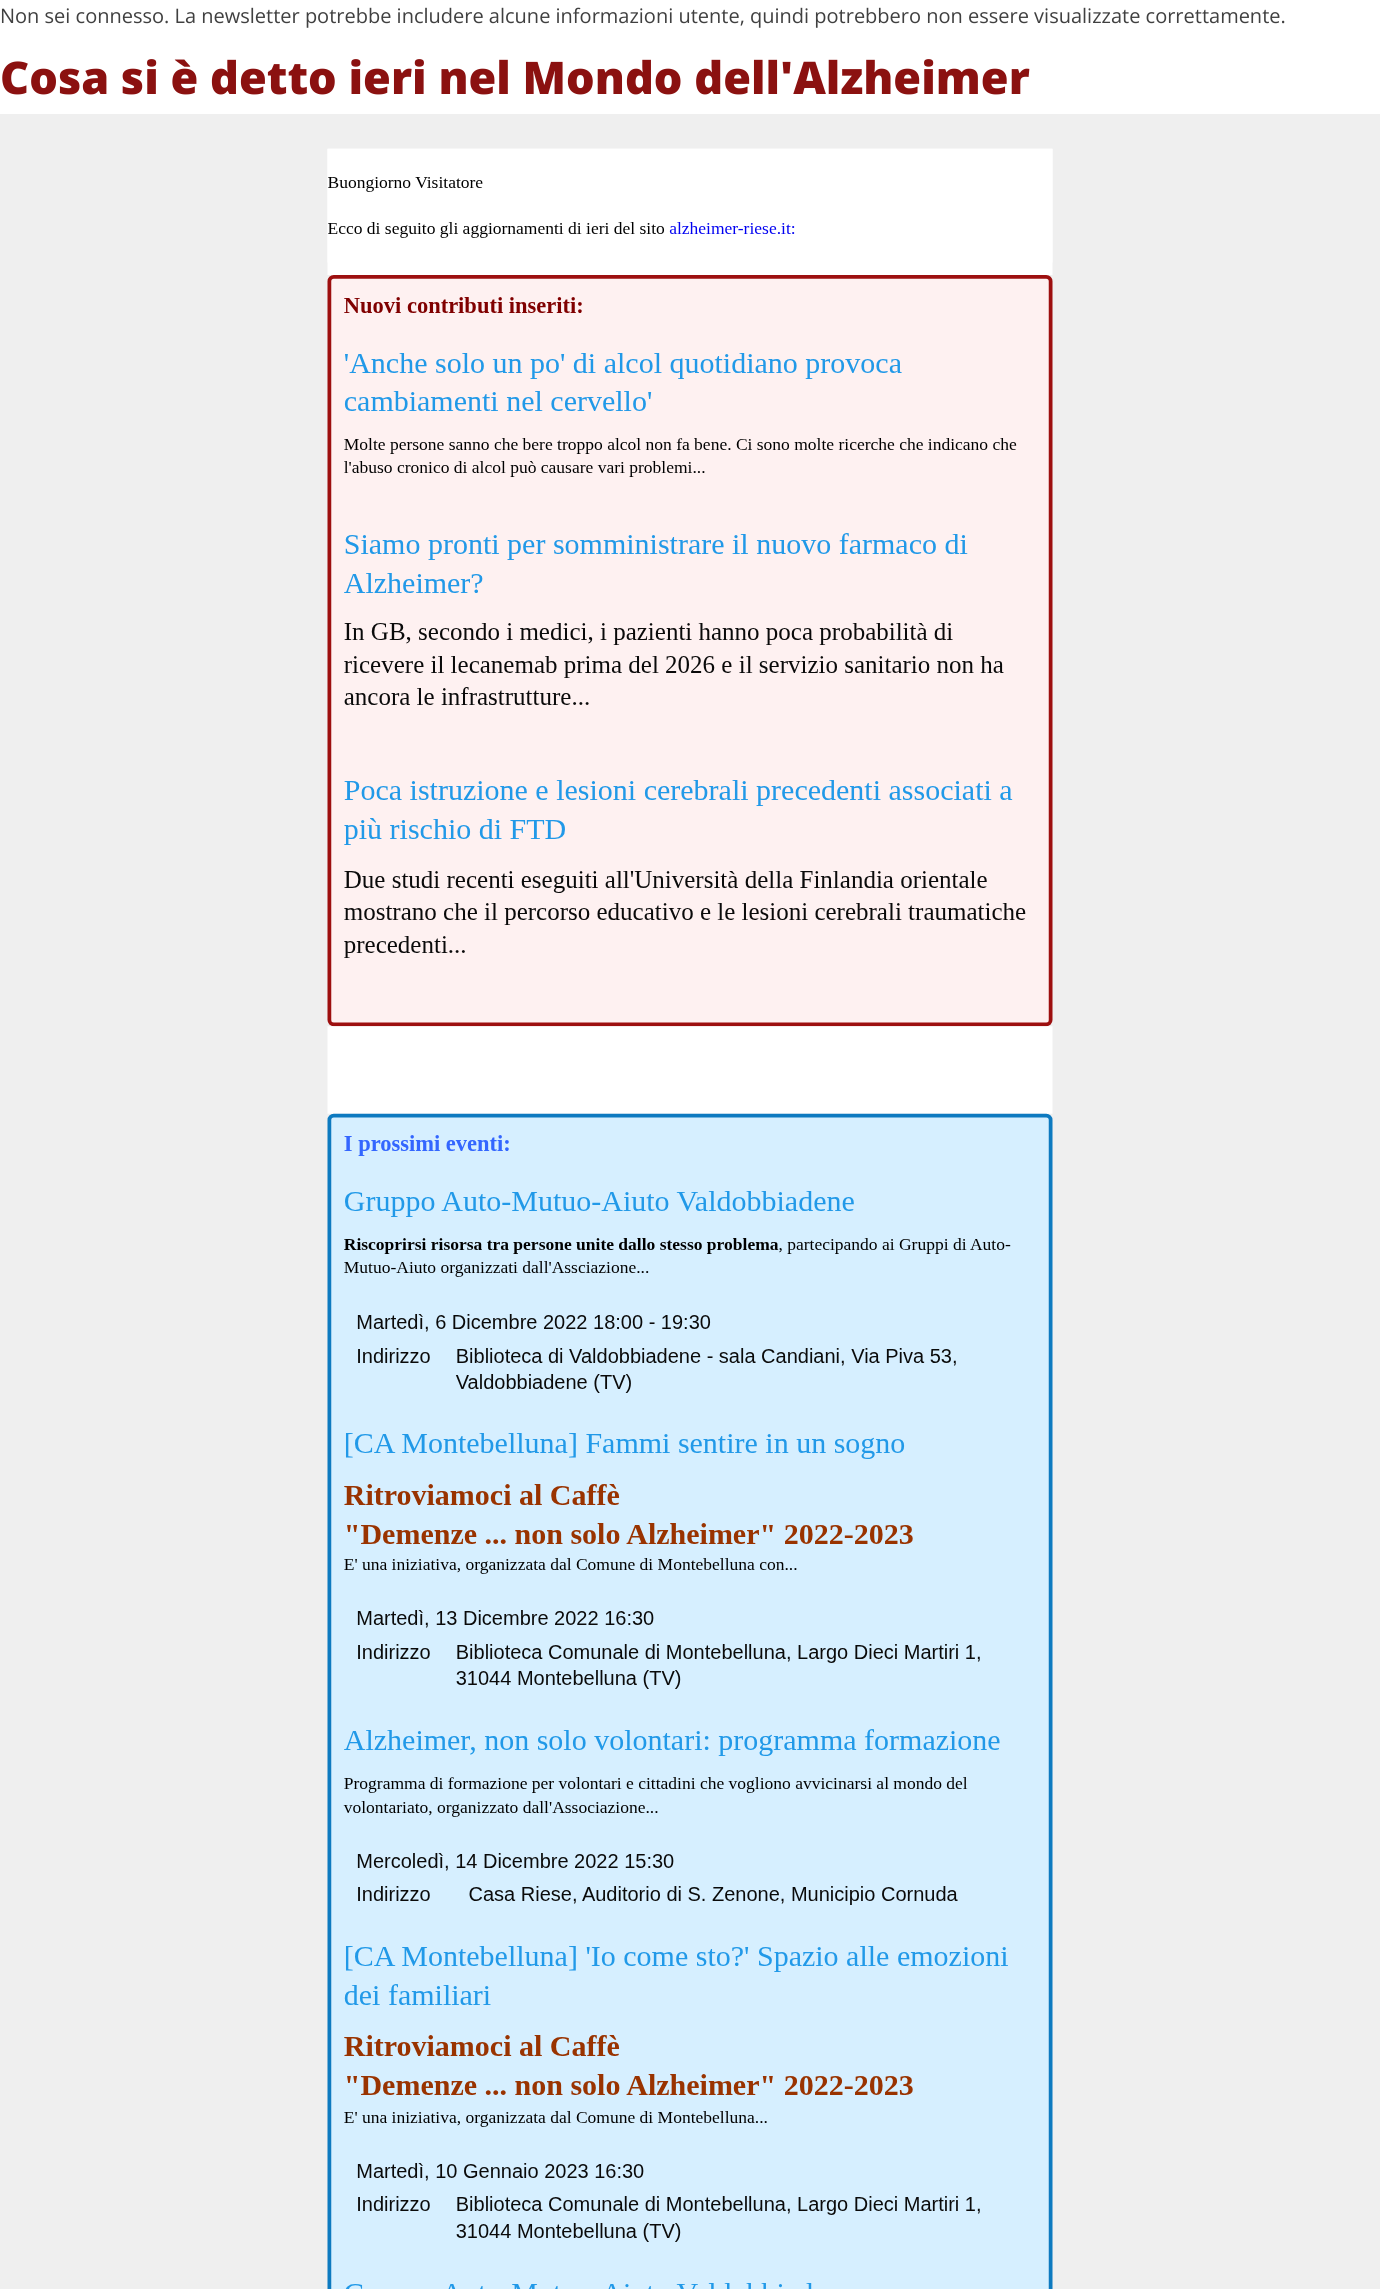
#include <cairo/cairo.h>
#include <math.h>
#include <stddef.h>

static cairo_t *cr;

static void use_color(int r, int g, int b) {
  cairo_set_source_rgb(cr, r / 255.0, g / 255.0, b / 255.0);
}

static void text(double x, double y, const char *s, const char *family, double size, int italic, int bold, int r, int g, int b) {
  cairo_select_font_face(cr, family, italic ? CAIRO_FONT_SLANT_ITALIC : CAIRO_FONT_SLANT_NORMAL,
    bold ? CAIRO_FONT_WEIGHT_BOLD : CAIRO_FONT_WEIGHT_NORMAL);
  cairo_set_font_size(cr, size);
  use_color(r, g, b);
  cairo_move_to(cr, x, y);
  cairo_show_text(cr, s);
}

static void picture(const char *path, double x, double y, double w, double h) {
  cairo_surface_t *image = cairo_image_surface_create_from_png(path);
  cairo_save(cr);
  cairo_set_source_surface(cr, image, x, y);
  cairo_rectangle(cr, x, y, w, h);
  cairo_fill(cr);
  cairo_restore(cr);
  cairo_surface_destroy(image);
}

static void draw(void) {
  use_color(255, 255, 255);
  cairo_paint(cr);
  picture("img_01.png", 0, 114, 1380, 2175);
  text(0, 23, "Non sei connesso. La newsletter potrebbe includere alcune informazioni utente, quindi potrebbero non essere visualizzate correttamente.", "Open Sans", 20, 0, 0, 64, 64, 64);
  text(0, 94, "Cosa si è detto ieri nel Mondo dell'Alzheimer", "Open Sans ExtraBold", 45, 0, 0, 139, 17, 16);
}

int main(void) {
  cairo_surface_t *surface = cairo_image_surface_create(CAIRO_FORMAT_RGB24, 1380, 2289);
  cr = cairo_create(surface);
  cairo_font_options_t *options = cairo_font_options_create();
  cairo_font_options_set_hint_metrics(options, CAIRO_HINT_METRICS_OFF);
  cairo_font_options_set_hint_style(options, CAIRO_HINT_STYLE_NONE);
  cairo_set_font_options(cr, options);
  cairo_set_miter_limit(cr, 4);
  draw();
  cairo_surface_write_to_png(surface, "out.png");
  cairo_font_options_destroy(options);
  cairo_destroy(cr);
  cairo_surface_destroy(surface);
  return 0;
}
